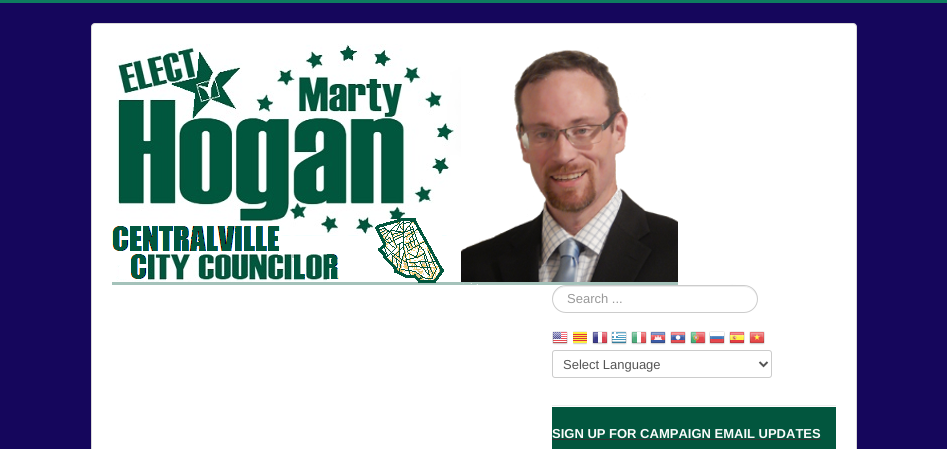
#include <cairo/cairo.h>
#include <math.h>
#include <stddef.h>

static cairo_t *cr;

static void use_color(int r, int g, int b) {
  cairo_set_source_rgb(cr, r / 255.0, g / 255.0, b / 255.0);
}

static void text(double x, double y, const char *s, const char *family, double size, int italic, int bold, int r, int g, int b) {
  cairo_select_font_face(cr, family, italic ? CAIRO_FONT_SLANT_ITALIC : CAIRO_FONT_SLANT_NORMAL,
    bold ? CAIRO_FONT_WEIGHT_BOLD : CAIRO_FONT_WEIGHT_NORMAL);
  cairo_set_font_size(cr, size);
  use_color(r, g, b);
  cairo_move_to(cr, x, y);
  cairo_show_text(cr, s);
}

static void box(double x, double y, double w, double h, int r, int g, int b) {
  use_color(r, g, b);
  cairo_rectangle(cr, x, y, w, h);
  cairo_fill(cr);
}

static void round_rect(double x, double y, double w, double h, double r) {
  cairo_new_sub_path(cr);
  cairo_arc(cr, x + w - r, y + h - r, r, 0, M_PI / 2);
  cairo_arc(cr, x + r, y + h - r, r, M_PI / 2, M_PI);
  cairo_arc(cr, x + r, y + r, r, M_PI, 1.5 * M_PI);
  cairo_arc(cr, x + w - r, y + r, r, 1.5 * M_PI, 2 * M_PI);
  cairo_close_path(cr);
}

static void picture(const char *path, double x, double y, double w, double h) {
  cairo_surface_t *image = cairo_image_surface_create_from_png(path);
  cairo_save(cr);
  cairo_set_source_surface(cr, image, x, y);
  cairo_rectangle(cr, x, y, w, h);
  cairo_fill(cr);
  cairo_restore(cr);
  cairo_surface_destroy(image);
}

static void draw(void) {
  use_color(21, 6, 92);
  cairo_paint(cr);
  box(0, 0, 947, 3, 14, 125, 95);
  use_color(255, 255, 255);
  round_rect(91, 23, 766, 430, 4);
  cairo_fill(cr);
  round_rect(91.5, 23.5, 765, 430, 3.5);
  cairo_set_source_rgba(cr, 0, 0, 0, 0.15);
  cairo_set_line_width(cr, 1);
  cairo_stroke(cr);
  picture("img_01.png", 112, 44, 566, 241);
  use_color(236, 236, 236);
  cairo_new_path(cr);
  cairo_move_to(cr, 566, 287);
  cairo_line_to(cr, 744, 287);
  cairo_curve_to(cr, 751, 287, 757, 293, 757, 300);
  cairo_curve_to(cr, 758, 279, 722, 286, 714, 286);
  cairo_line_to(cr, 596, 286);
  cairo_curve_to(cr, 588, 286, 552, 279, 553, 300);
  cairo_curve_to(cr, 553, 293, 559, 287, 566, 287);
  cairo_close_path(cr);
  cairo_fill(cr);
  round_rect(552.5, 285.5, 205, 27, 13.5);
  use_color(204, 204, 204);
  cairo_stroke(cr);
  picture("img_02.png", 552, 331, 16, 14);
  picture("img_03.png", 573, 331, 14, 14);
  picture("img_04.png", 592, 331, 16, 14);
  picture("img_05.png", 611, 331, 16, 14);
  picture("img_06.png", 631, 331, 16, 14);
  picture("img_07.png", 650, 331, 16, 14);
  picture("img_08.png", 670, 331, 16, 14);
  picture("img_09.png", 690, 331, 16, 14);
  picture("img_10.png", 709, 331, 16, 14);
  picture("img_11.png", 729, 331, 16, 14);
  picture("img_12.png", 749, 331, 16, 14);
  round_rect(552.5, 350.5, 219, 27, 2.5);
  cairo_stroke(cr);
  cairo_new_path(cr);
  cairo_move_to(cr, 759.5, 362);
  cairo_line_to(cr, 763.5, 366);
  cairo_line_to(cr, 767.5, 362);
  use_color(85, 85, 85);
  cairo_set_line_width(cr, 2);
  cairo_stroke(cr);
  box(552, 407, 284, 42, 2, 86, 62);
  box(552, 405, 284, 1, 238, 238, 238);
  box(552, 439, 269, 1, 51, 51, 51);
  text(567, 303, "Search ...", "Liberation Sans", 13, 0, 0, 153, 153, 153);
  text(563, 369, "Select Language", "Liberation Sans", 13, 0, 0, 85, 85, 85);
  text(552, 438, "SIGN UP FOR CAMPAIGN EMAIL UPDATES", "Liberation Sans", 13, 0, 1, 249, 251, 250);
}

int main(void) {
  cairo_surface_t *surface = cairo_image_surface_create(CAIRO_FORMAT_RGB24, 947, 449);
  cr = cairo_create(surface);
  cairo_font_options_t *options = cairo_font_options_create();
  cairo_font_options_set_hint_metrics(options, CAIRO_HINT_METRICS_OFF);
  cairo_font_options_set_hint_style(options, CAIRO_HINT_STYLE_NONE);
  cairo_set_font_options(cr, options);
  cairo_set_miter_limit(cr, 4);
  draw();
  cairo_surface_write_to_png(surface, "out.png");
  cairo_font_options_destroy(options);
  cairo_destroy(cr);
  cairo_surface_destroy(surface);
  return 0;
}
